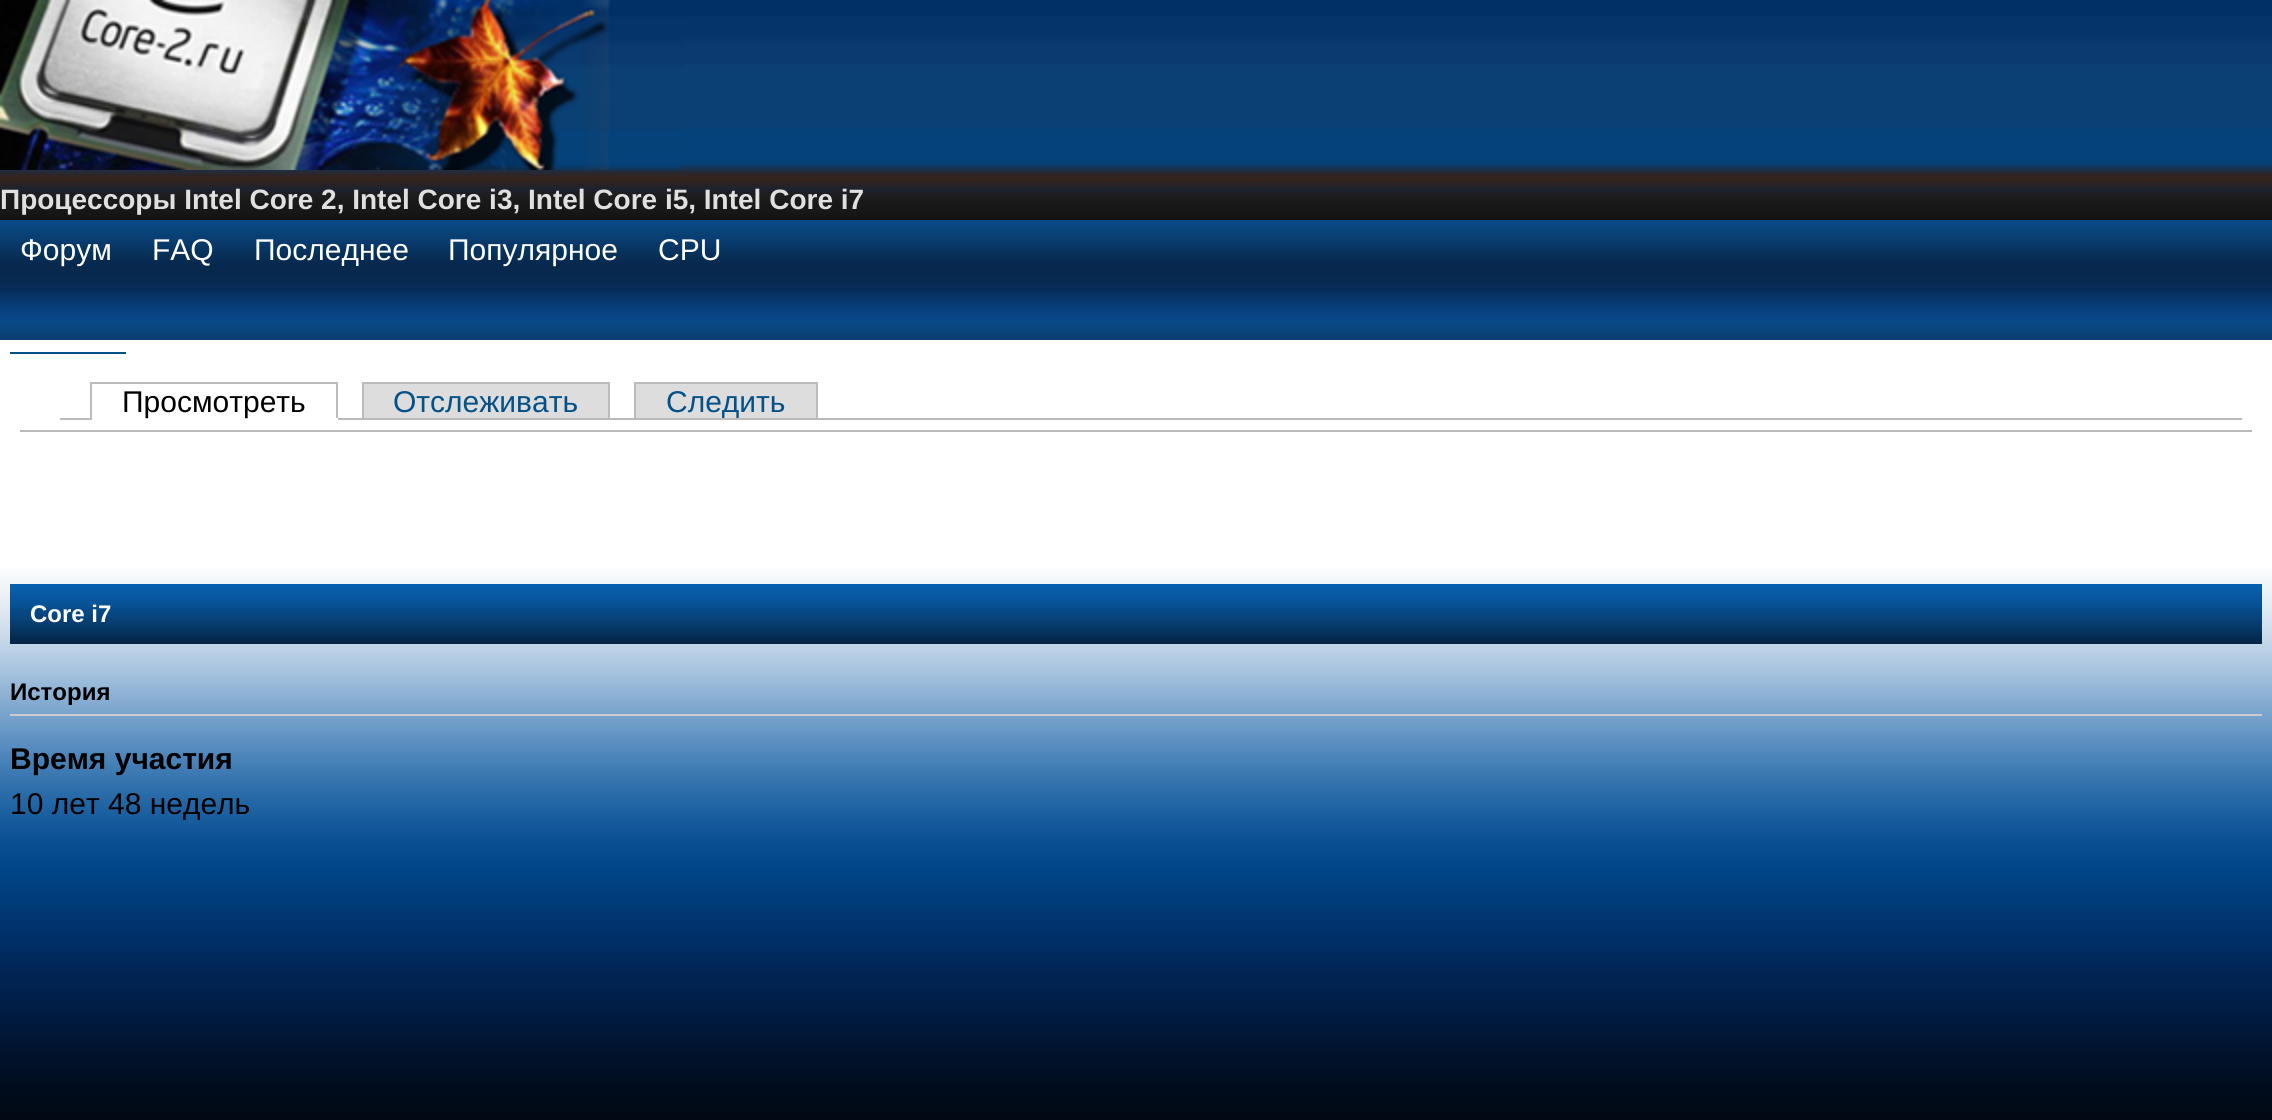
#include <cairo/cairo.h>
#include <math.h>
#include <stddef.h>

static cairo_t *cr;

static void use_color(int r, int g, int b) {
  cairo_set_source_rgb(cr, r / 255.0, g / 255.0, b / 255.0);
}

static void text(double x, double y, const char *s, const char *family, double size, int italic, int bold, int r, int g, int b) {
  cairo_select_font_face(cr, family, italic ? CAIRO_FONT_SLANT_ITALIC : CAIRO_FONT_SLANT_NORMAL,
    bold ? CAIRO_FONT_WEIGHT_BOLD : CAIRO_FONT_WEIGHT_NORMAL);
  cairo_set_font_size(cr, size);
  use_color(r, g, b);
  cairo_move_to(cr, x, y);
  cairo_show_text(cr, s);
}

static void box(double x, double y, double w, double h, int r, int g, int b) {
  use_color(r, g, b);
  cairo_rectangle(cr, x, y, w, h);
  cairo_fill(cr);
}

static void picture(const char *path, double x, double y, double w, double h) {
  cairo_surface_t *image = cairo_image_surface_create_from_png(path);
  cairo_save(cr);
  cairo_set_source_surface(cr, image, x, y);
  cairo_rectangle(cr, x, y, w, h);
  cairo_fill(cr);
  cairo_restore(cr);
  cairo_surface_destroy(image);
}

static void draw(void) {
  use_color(255, 255, 255);
  cairo_paint(cr);
  picture("img_01.png", 0, 568, 2272, 552);
  picture("img_02.png", 0, 0, 2272, 220);
  picture("img_03.png", 0, 0, 684, 170);
  picture("img_04.png", 0, 220, 2272, 120);
  box(10, 352, 116, 2, 3, 81, 136);
  box(20, 430, 2232, 2, 187, 187, 187);
  box(60, 418, 2182, 2, 187, 187, 187);
  box(90, 382, 248, 2, 187, 187, 187);
  box(336, 382, 2, 38, 187, 187, 187);
  box(90, 418, 248, 2, 255, 255, 255);
  box(90, 382, 2, 38, 187, 187, 187);
  box(364, 384, 244, 34, 221, 221, 221);
  box(362, 382, 248, 2, 187, 187, 187);
  box(608, 382, 2, 36, 187, 187, 187);
  box(362, 382, 2, 36, 187, 187, 187);
  box(636, 384, 180, 34, 221, 221, 221);
  box(634, 382, 184, 2, 187, 187, 187);
  box(816, 382, 2, 36, 187, 187, 187);
  box(634, 382, 2, 36, 187, 187, 187);
  picture("img_05.png", 10, 584, 2252, 60);
  box(10, 714, 2252, 2, 204, 204, 204);
  text(0, 209, "Процессоры Intel Core 2, Intel Core i3, Intel Core i5, Intel Core i7", "Liberation Sans", 28, 0, 1, 224, 224, 224);
  text(20, 260, "Форум", "Liberation Sans", 30, 0, 0, 255, 255, 255);
  text(152, 260, "FAQ", "Liberation Sans", 30, 0, 0, 255, 255, 255);
  text(254, 260, "Последнее", "Liberation Sans", 30, 0, 0, 255, 255, 255);
  text(448, 260, "Популярное", "Liberation Sans", 30, 0, 0, 255, 255, 255);
  text(658, 260, "CPU", "Liberation Sans", 30, 0, 0, 255, 255, 255);
  text(122, 412, "Просмотреть", "Liberation Sans", 30, 0, 0, 0, 0, 0);
  text(393, 412, "Отслеживать", "Liberation Sans", 30, 0, 0, 3, 81, 136);
  text(666, 412, "Следить", "Liberation Sans", 30, 0, 0, 3, 81, 136);
  text(30, 622, "Core i7", "Liberation Sans", 24, 0, 1, 255, 255, 255);
  text(10, 700, "История", "Liberation Sans", 24, 0, 1, 0, 0, 0);
  text(10, 769, "Время участия", "Liberation Sans", 30, 0, 1, 0, 0, 0);
  text(10, 814, "10 лет 48 недель", "Liberation Sans", 30, 0, 0, 0, 0, 0);
}

int main(void) {
  cairo_surface_t *surface = cairo_image_surface_create(CAIRO_FORMAT_RGB24, 2272, 1120);
  cr = cairo_create(surface);
  cairo_font_options_t *options = cairo_font_options_create();
  cairo_font_options_set_hint_metrics(options, CAIRO_HINT_METRICS_OFF);
  cairo_font_options_set_hint_style(options, CAIRO_HINT_STYLE_NONE);
  cairo_set_font_options(cr, options);
  cairo_set_miter_limit(cr, 4);
  draw();
  cairo_surface_write_to_png(surface, "out.png");
  cairo_font_options_destroy(options);
  cairo_destroy(cr);
  cairo_surface_destroy(surface);
  return 0;
}
